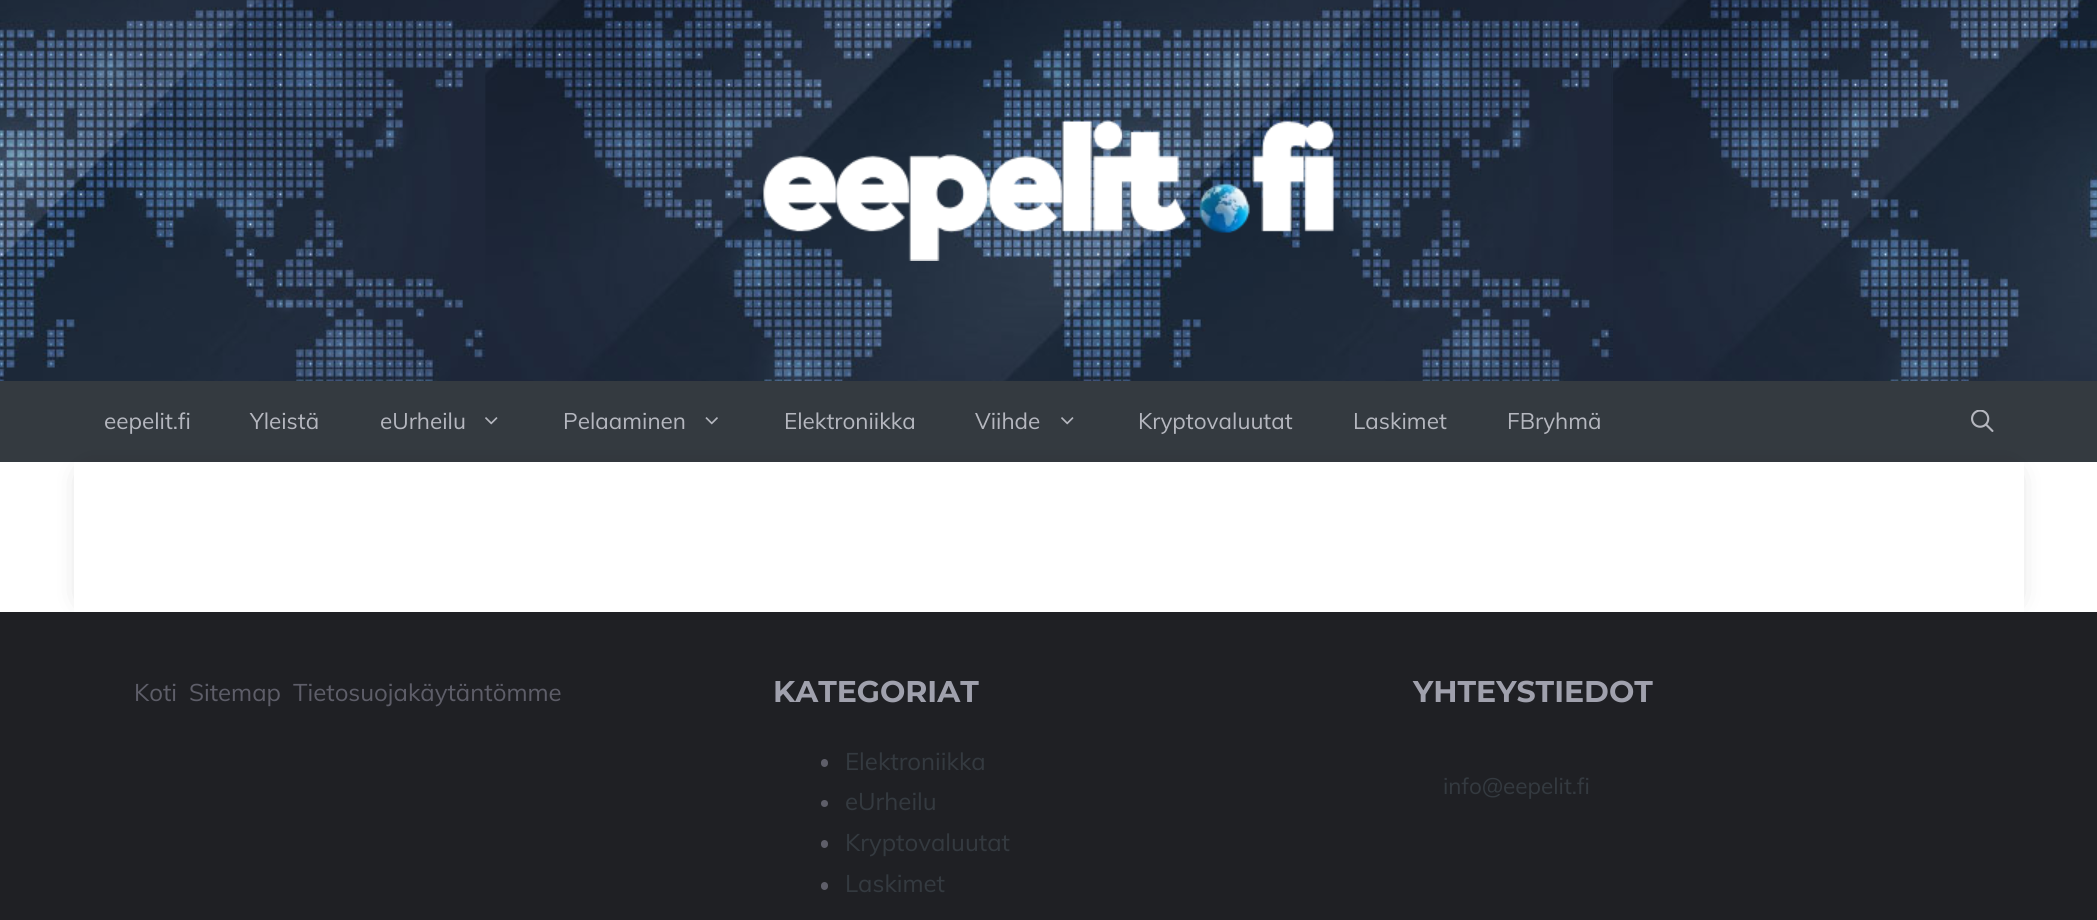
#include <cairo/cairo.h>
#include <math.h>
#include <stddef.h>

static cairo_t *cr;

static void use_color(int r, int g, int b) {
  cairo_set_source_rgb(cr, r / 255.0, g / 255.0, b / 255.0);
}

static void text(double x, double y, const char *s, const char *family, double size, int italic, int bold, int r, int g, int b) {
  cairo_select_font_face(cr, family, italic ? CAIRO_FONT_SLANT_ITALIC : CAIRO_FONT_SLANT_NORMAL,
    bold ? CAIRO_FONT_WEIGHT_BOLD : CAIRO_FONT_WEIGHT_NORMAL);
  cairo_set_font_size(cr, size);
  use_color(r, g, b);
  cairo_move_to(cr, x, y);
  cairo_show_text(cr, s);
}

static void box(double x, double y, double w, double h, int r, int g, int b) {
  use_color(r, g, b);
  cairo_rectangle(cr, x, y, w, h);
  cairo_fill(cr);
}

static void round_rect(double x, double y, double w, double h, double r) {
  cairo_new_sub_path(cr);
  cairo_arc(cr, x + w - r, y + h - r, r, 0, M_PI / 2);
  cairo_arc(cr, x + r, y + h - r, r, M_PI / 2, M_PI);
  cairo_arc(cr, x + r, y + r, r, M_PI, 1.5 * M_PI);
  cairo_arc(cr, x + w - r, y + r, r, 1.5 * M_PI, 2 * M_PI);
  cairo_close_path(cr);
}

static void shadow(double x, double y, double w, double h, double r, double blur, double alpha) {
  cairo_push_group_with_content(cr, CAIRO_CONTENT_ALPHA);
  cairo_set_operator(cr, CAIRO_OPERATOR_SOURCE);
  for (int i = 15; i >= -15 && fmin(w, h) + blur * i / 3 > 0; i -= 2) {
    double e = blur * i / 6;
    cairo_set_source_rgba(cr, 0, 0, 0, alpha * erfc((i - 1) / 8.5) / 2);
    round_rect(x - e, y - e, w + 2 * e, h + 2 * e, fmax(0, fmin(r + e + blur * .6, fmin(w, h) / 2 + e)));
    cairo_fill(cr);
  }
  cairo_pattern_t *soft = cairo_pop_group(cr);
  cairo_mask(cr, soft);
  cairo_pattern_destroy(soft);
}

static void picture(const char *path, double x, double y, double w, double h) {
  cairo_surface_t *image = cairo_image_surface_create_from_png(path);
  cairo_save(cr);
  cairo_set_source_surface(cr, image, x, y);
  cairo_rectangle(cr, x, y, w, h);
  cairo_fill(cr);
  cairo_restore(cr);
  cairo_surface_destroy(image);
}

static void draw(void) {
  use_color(255, 255, 255);
  cairo_paint(cr);
  picture("img_01.png", 0, 0, 2097, 381);
  picture("img_02.png", 763, 120, 571, 141);
  box(0, 381, 2097, 81, 52, 58, 64);
  picture("img_03.png", 485, 417, 13, 8);
  picture("img_04.png", 705, 417, 13, 8);
  picture("img_03.png", 1061, 417, 13, 8);
  use_color(0, 0, 0);
  shadow(89, 477, 1920, 120, 0, 15, 0.3);
  picture("img_05.png", 1971, 410, 23, 22);
  box(74, 462, 1950, 150, 255, 255, 255);
  box(0, 612, 2097, 308, 31, 32, 36);
  use_color(94, 94, 105);
  round_rect(821, 759, 7, 8, 3.5);
  cairo_fill(cr);
  cairo_arc(cr, 824.5, 803.5, 3.5, 0, 2 * M_PI);
  cairo_fill(cr);
  round_rect(821, 840, 7, 8, 3.5);
  cairo_fill(cr);
  round_rect(821, 882, 7, 8, 3.5);
  cairo_fill(cr);
  text(104, 429, "eepelit.fi", "Muli", 22.5, 0, 0, 181, 183, 191);
  text(250, 429, "Yleistä", "Muli", 22.5, 0, 0, 181, 183, 191);
  text(380, 429, "eUrheilu", "Muli", 22.5, 0, 0, 181, 183, 191);
  text(563, 429, "Pelaaminen", "Muli", 22.5, 0, 0, 181, 183, 191);
  text(784, 429, "Elektroniikka", "Muli", 22.5, 0, 0, 181, 183, 191);
  text(975, 429, "Viihde", "Muli", 22.5, 0, 0, 181, 183, 191);
  text(1138, 429, "Kryptovaluutat", "Muli", 22.5, 0, 0, 181, 183, 191);
  text(1353, 429, "Laskimet", "Muli", 22.5, 0, 0, 181, 183, 191);
  text(1507, 429, "FBryhmä", "Muli", 22.5, 0, 0, 181, 183, 191);
  text(134, 701, "Koti", "Muli", 24, 0, 0, 94, 94, 105);
  text(189, 701, "Sitemap", "Muli", 24, 0, 0, 94, 94, 105);
  text(293, 701, "Tietosuojakäytäntömme", "Muli", 24, 0, 0, 94, 94, 105);
  text(773, 702, "KATEGORIAT", "Montserrat", 30, 0, 1, 160, 161, 173);
  text(845, 770, "Elektroniikka", "Muli", 24, 0, 0, 52, 58, 64);
  text(845, 810, "eUrheilu", "Muli", 24, 0, 0, 52, 58, 64);
  text(845, 851, "Kryptovaluutat", "Muli", 24, 0, 0, 52, 58, 64);
  text(845, 892, "Laskimet", "Muli", 24, 0, 0, 52, 58, 64);
  text(1413, 702, "YHTEYSTIEDOT", "Montserrat", 30, 0, 1, 160, 161, 173);
  text(1443, 794, "info@eepelit.fi", "Muli", 22.5, 0, 0, 52, 58, 64);
}

int main(void) {
  cairo_surface_t *surface = cairo_image_surface_create(CAIRO_FORMAT_RGB24, 2097, 920);
  cr = cairo_create(surface);
  cairo_font_options_t *options = cairo_font_options_create();
  cairo_font_options_set_hint_metrics(options, CAIRO_HINT_METRICS_OFF);
  cairo_font_options_set_hint_style(options, CAIRO_HINT_STYLE_NONE);
  cairo_set_font_options(cr, options);
  cairo_set_miter_limit(cr, 4);
  draw();
  cairo_surface_write_to_png(surface, "out.png");
  cairo_font_options_destroy(options);
  cairo_destroy(cr);
  cairo_surface_destroy(surface);
  return 0;
}
